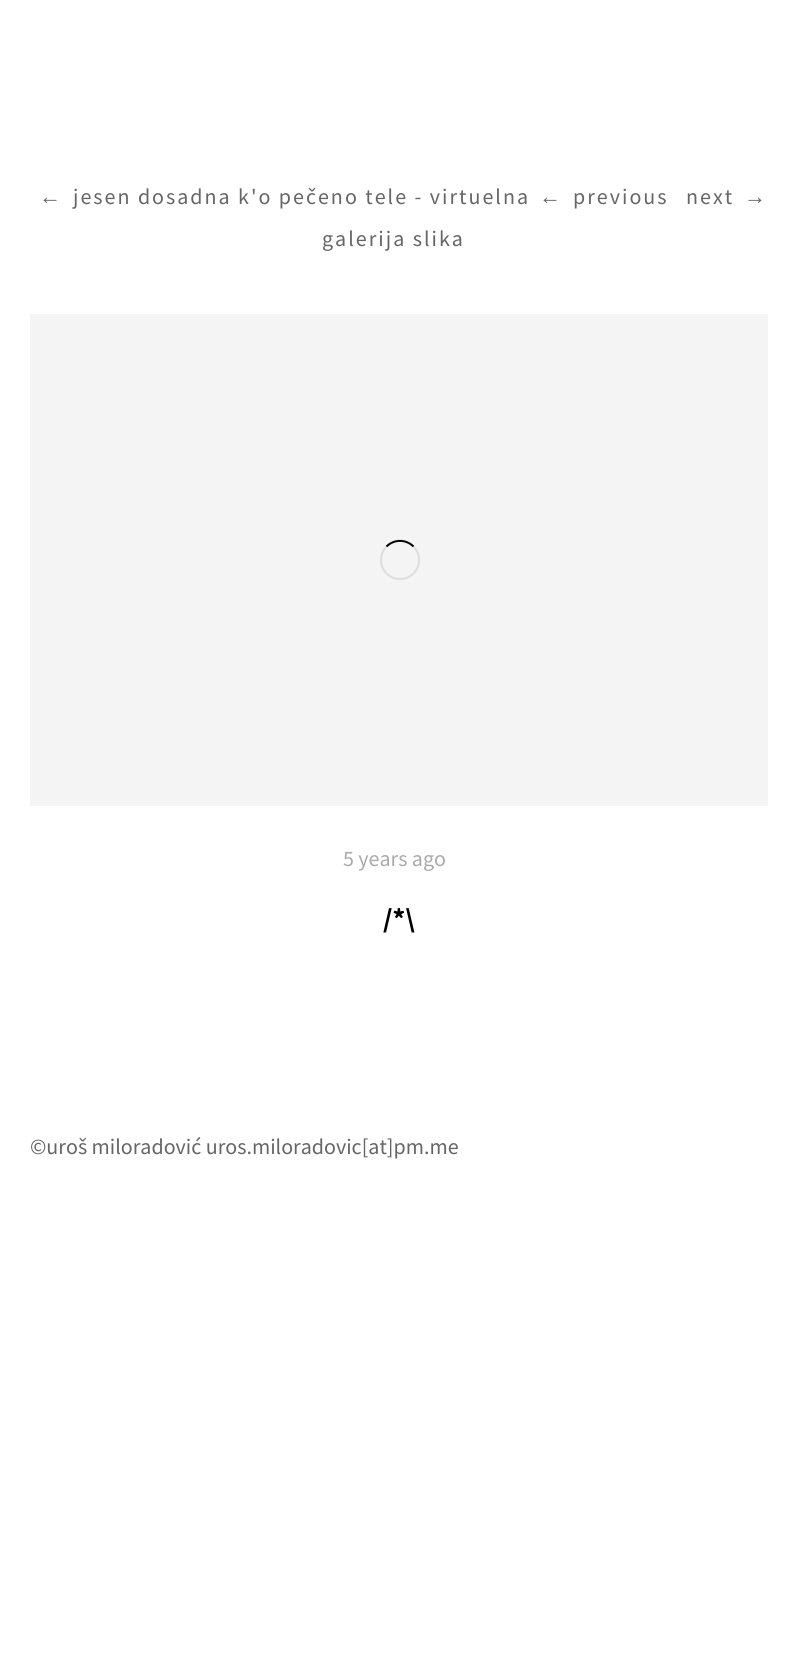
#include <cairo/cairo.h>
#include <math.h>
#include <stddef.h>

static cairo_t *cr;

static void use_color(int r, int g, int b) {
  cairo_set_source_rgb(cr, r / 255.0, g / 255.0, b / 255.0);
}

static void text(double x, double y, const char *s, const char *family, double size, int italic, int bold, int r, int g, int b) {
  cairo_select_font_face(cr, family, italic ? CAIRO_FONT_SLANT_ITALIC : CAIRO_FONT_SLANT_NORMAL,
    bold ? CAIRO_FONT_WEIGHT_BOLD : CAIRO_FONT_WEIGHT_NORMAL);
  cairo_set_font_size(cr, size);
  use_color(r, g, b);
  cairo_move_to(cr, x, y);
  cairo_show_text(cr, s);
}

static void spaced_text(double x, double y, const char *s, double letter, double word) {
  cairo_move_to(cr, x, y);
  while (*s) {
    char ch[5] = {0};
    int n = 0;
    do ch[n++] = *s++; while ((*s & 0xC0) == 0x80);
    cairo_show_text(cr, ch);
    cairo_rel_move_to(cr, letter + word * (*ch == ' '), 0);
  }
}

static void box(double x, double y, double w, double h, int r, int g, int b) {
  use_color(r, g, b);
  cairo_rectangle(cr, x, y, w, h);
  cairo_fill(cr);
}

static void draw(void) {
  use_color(255, 255, 255);
  cairo_paint(cr);
  box(30, 314, 738, 492, 244, 244, 244);
  cairo_arc(cr, 400, 560, 19, 0, 2 * M_PI);
  use_color(221, 221, 221);
  cairo_stroke(cr);
  cairo_new_path(cr);
  cairo_move_to(cr, 386.5, 546.5);
  cairo_curve_to(cr, 394, 539, 406, 539, 413.5, 546.5);
  use_color(0, 0, 0);
  cairo_stroke(cr);
  cairo_select_font_face(cr, "Liberation Sans", CAIRO_FONT_SLANT_NORMAL, CAIRO_FONT_WEIGHT_NORMAL);
  cairo_set_font_size(cr, 22);
  use_color(102, 102, 102);
  spaced_text(39, 204, "←", 2, 0);
  cairo_select_font_face(cr, "Source Sans Pro", CAIRO_FONT_SLANT_NORMAL, CAIRO_FONT_WEIGHT_NORMAL);
  spaced_text(73, 204, "jesen dosadna k'o pečeno tele - virtuelna", 2, 0);
  cairo_select_font_face(cr, "Liberation Sans", CAIRO_FONT_SLANT_NORMAL, CAIRO_FONT_WEIGHT_NORMAL);
  spaced_text(539, 204, "←", 2, 0);
  cairo_select_font_face(cr, "Source Sans Pro", CAIRO_FONT_SLANT_NORMAL, CAIRO_FONT_WEIGHT_NORMAL);
  spaced_text(573, 204, "previous", 2, 0);
  spaced_text(686, 204, "next", 2, 0);
  cairo_select_font_face(cr, "Liberation Sans", CAIRO_FONT_SLANT_NORMAL, CAIRO_FONT_WEIGHT_NORMAL);
  spaced_text(744, 204, "→", 2, 0);
  cairo_select_font_face(cr, "Source Sans Pro", CAIRO_FONT_SLANT_NORMAL, CAIRO_FONT_WEIGHT_NORMAL);
  spaced_text(322, 246, "galerija slika", 2, 0);
  text(343, 866, "5 years ago", "Source Sans Pro", 22, 0, 0, 170, 170, 170);
  text(383, 928, "/*\\", "Source Sans Pro", 28, 0, 1, 0, 0, 0);
  text(30, 1154, "©uroš miloradović uros.miloradovic[at]pm.me", "Source Sans Pro", 22, 0, 0, 102, 102, 102);
}

int main(void) {
  cairo_surface_t *surface = cairo_image_surface_create(CAIRO_FORMAT_RGB24, 798, 1673);
  cr = cairo_create(surface);
  cairo_font_options_t *options = cairo_font_options_create();
  cairo_font_options_set_hint_metrics(options, CAIRO_HINT_METRICS_OFF);
  cairo_font_options_set_hint_style(options, CAIRO_HINT_STYLE_NONE);
  cairo_set_font_options(cr, options);
  cairo_set_miter_limit(cr, 4);
  draw();
  cairo_surface_write_to_png(surface, "out.png");
  cairo_font_options_destroy(options);
  cairo_destroy(cr);
  cairo_surface_destroy(surface);
  return 0;
}
